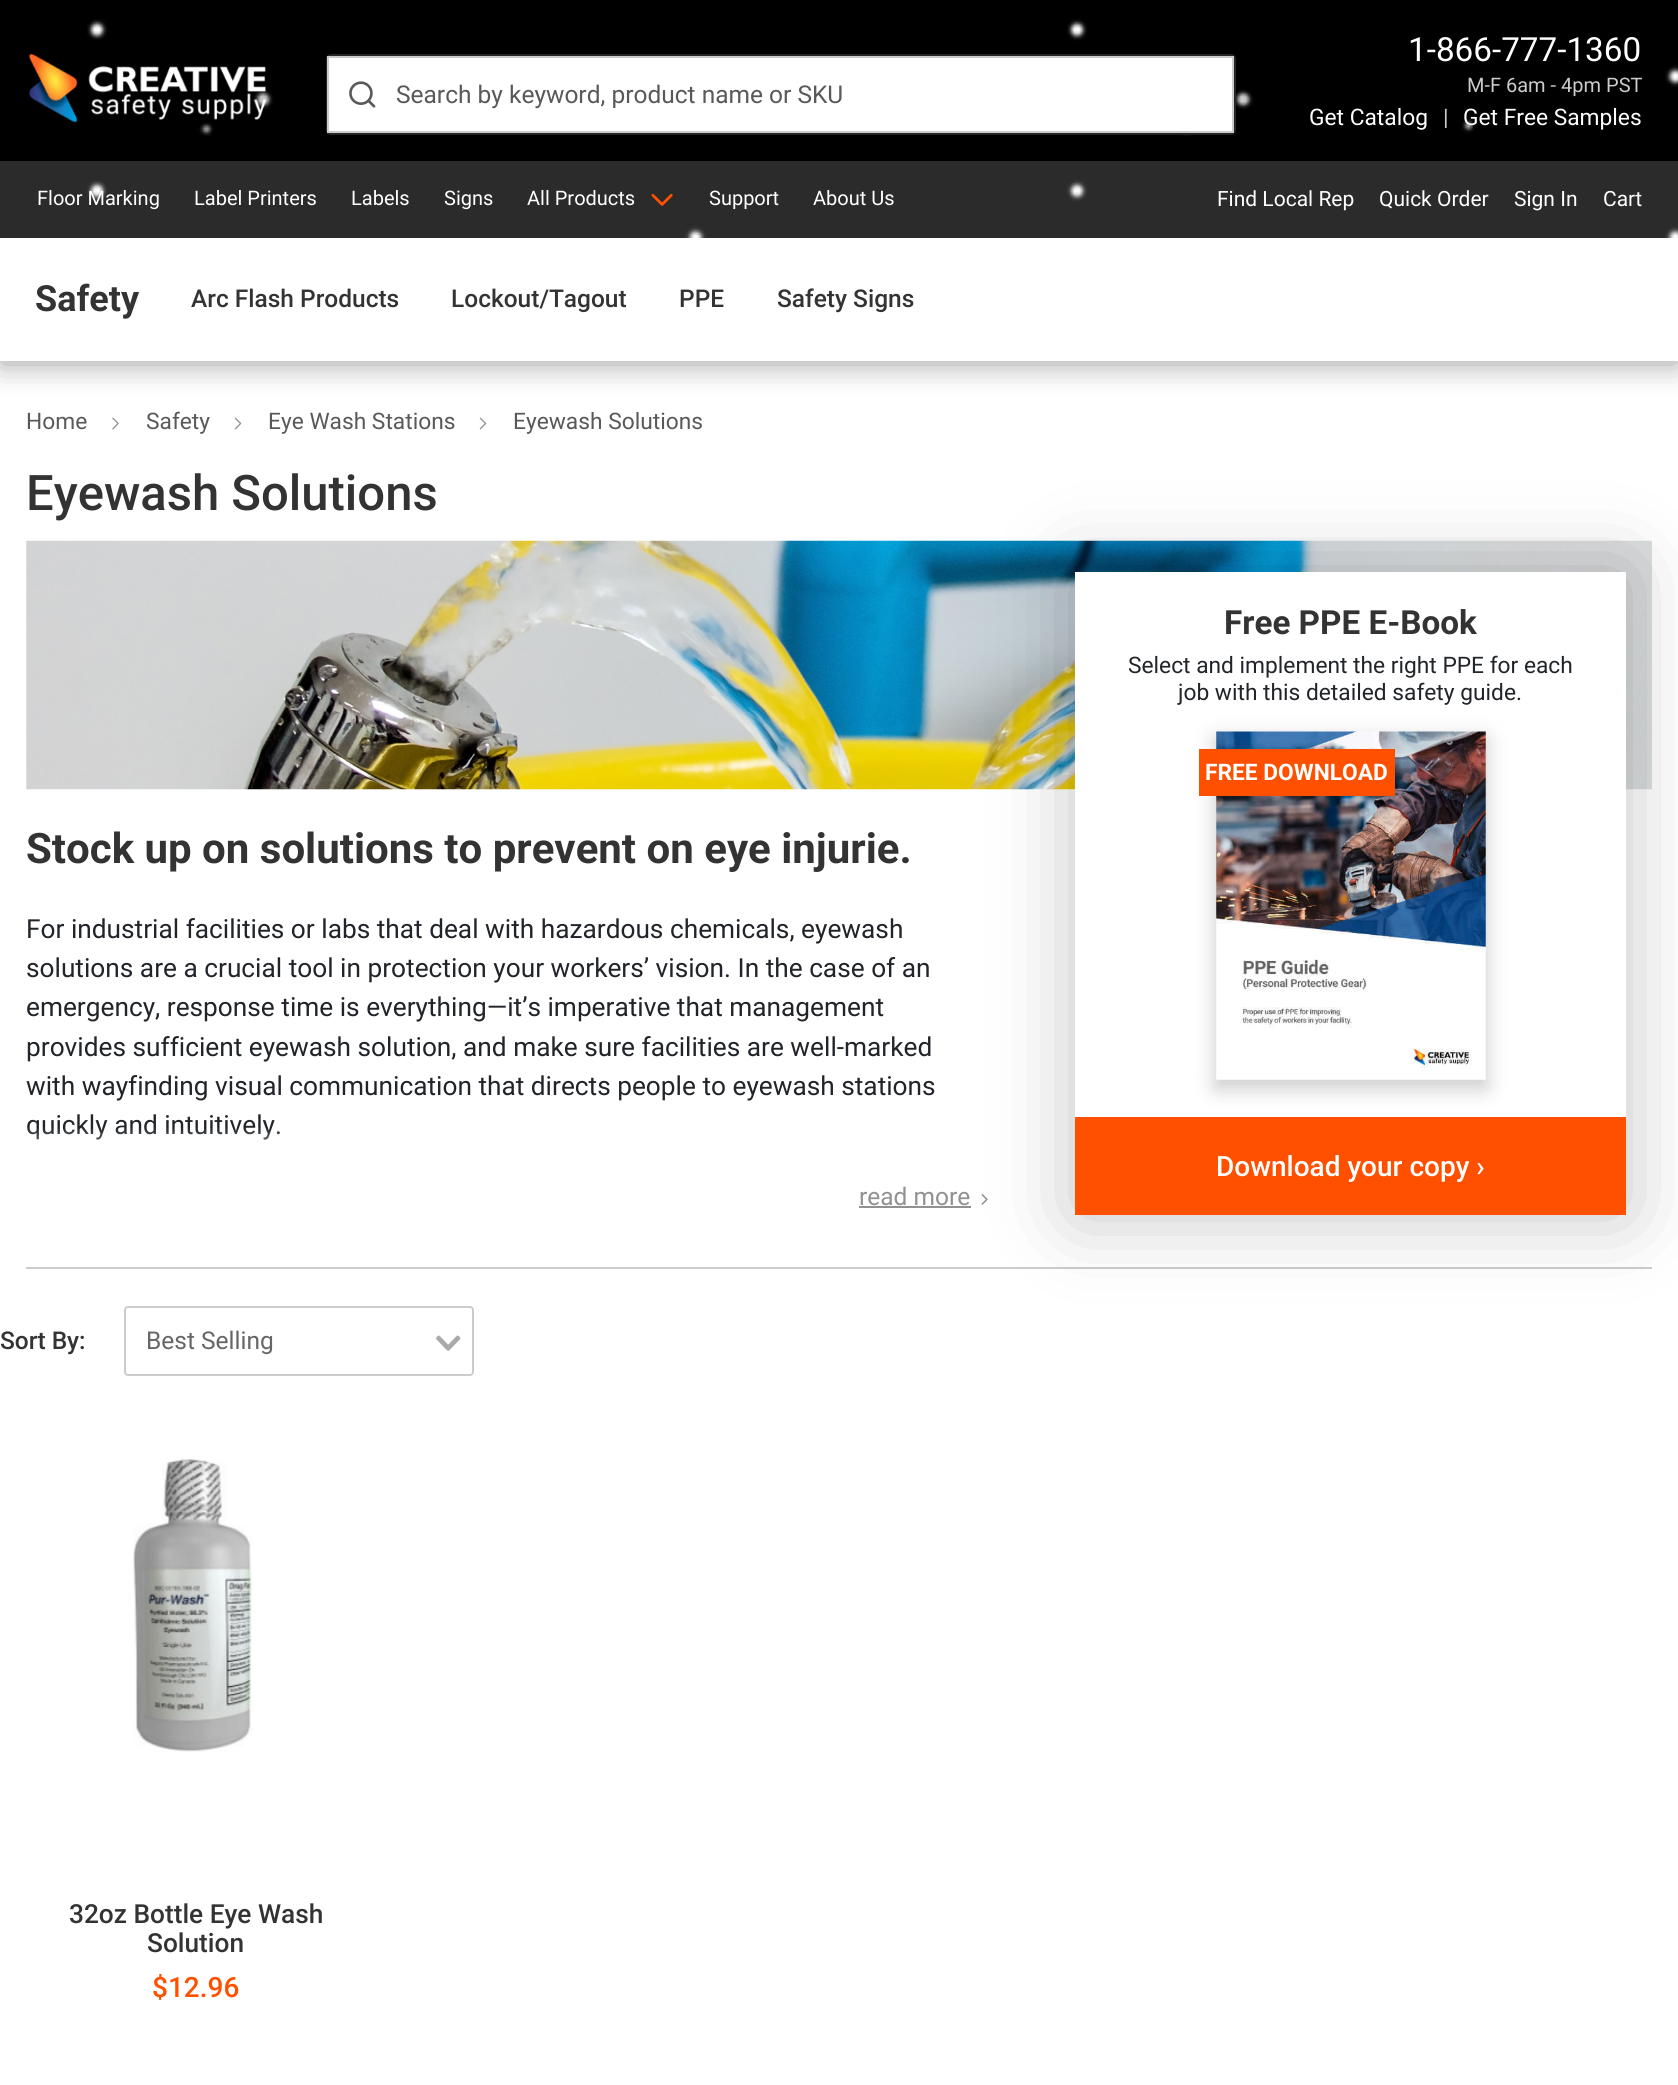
#include <cairo/cairo.h>
#include <math.h>
#include <stddef.h>

static cairo_t *cr;

static void use_color(int r, int g, int b) {
  cairo_set_source_rgb(cr, r / 255.0, g / 255.0, b / 255.0);
}

static void text(double x, double y, const char *s, const char *family, double size, int italic, int bold, int r, int g, int b) {
  cairo_select_font_face(cr, family, italic ? CAIRO_FONT_SLANT_ITALIC : CAIRO_FONT_SLANT_NORMAL,
    bold ? CAIRO_FONT_WEIGHT_BOLD : CAIRO_FONT_WEIGHT_NORMAL);
  cairo_set_font_size(cr, size);
  use_color(r, g, b);
  cairo_move_to(cr, x, y);
  cairo_show_text(cr, s);
}

static void box(double x, double y, double w, double h, int r, int g, int b) {
  use_color(r, g, b);
  cairo_rectangle(cr, x, y, w, h);
  cairo_fill(cr);
}

static void round_rect(double x, double y, double w, double h, double r) {
  cairo_new_sub_path(cr);
  cairo_arc(cr, x + w - r, y + h - r, r, 0, M_PI / 2);
  cairo_arc(cr, x + r, y + h - r, r, M_PI / 2, M_PI);
  cairo_arc(cr, x + r, y + r, r, M_PI, 1.5 * M_PI);
  cairo_arc(cr, x + w - r, y + r, r, 1.5 * M_PI, 2 * M_PI);
  cairo_close_path(cr);
}

static void shadow(double x, double y, double w, double h, double r, double blur, double alpha) {
  cairo_push_group_with_content(cr, CAIRO_CONTENT_ALPHA);
  cairo_set_operator(cr, CAIRO_OPERATOR_SOURCE);
  for (int i = 15; i >= -15 && fmin(w, h) + blur * i / 3 > 0; i -= 2) {
    double e = blur * i / 6;
    cairo_set_source_rgba(cr, 0, 0, 0, alpha * erfc((i - 1) / 8.5) / 2);
    round_rect(x - e, y - e, w + 2 * e, h + 2 * e, fmax(0, fmin(r + e + blur * .6, fmin(w, h) / 2 + e)));
    cairo_fill(cr);
  }
  cairo_pattern_t *soft = cairo_pop_group(cr);
  cairo_mask(cr, soft);
  cairo_pattern_destroy(soft);
}

static void picture(const char *path, double x, double y, double w, double h) {
  cairo_surface_t *image = cairo_image_surface_create_from_png(path);
  cairo_save(cr);
  cairo_set_source_surface(cr, image, x, y);
  cairo_rectangle(cr, x, y, w, h);
  cairo_fill(cr);
  cairo_restore(cr);
  cairo_surface_destroy(image);
}

static void draw(void) {
  cairo_pattern_t *gradient;
  use_color(255, 255, 255);
  cairo_paint(cr);
  box(0, 0, 1678, 161, 0, 0, 0);
  picture("img_01.png", 87, 19, 1591, 117);
  picture("img_02.png", 29, 54, 237, 69);
  box(481, 65, 755, 70, 0, 0, 0);
  use_color(255, 255, 255);
  round_rect(327, 55, 908, 79, 4);
  cairo_fill_preserve(cr);
  use_color(38, 38, 39);
  cairo_stroke(cr);
  box(327, 56, 907, 2, 204, 204, 204);
  box(327, 131, 69, 2, 204, 204, 204);
  box(327, 56, 2, 77, 204, 204, 204);
  picture("img_03.png", 349, 81, 27, 27);
  box(1232, 56, 2, 77, 204, 204, 204);
  box(396, 131, 838, 2, 204, 204, 204);
  picture("img_06.png", 112, 417, 7, 13);
  picture("img_07.png", 234, 417, 8, 13);
  picture("img_07.png", 479, 417, 8, 13);
  use_color(0, 0, 0);
  shadow(0, 242, 1678, 122, 0, 17.5, 0.2);
  shadow(0, 242, 1678, 122, 0, 13, 0.2);
  box(0, 161, 1678, 77, 43, 43, 43);
  picture("img_04.png", 87, 180, 1591, 58);
  picture("img_05.png", 651, 194, 22, 12);
  box(0, 238, 1678, 123, 255, 255, 255);
  box(26, 1267, 1626, 2, 204, 204, 204);
  picture("img_08.png", 26, 540, 1626, 250);
  box(859, 1206, 112, 2, 145, 145, 145);
  picture("img_09.png", 981, 1194, 7, 11);
  use_color(0, 0, 0);
  shadow(1075, 572, 551, 643, 0, 42, 0.24);
  box(1075, 572, 551, 545, 255, 255, 255);
  box(1075, 1117, 551, 98, 255, 80, 0);
  use_color(0, 0, 0);
  shadow(1216, 739, 270, 348, 0, 13, 0.1);
  shadow(1216, 740, 270, 349, 0, 9.5, 0.12);
  picture("img_10.png", 1216, 731, 270, 349);
  box(1199, 749, 196, 47, 255, 80, 0);
  picture("img_11.png", 435, 1335, 26, 16);
  round_rect(125, 1307, 348, 68, 3);
  use_color(204, 204, 204);
  cairo_stroke(cr);
  picture("img_12.png", 133, 1459, 120, 293);
  text(396, 103, "Search by keyword, product name or SKU", "Roboto", 24.5, 0, 0, 89, 89, 89);
  text(1408, 61, "1-866-777-1360", "Roboto", 33.25, 0, 0, 255, 255, 255);
  text(1467, 92, "M-F 6am - 4pm PST", "Roboto", 20, 0, 0, 204, 204, 204);
  text(1309, 125, "Get Catalog", "Roboto", 22.75, 0, 0, 255, 255, 255);
  text(1443, 125, "|", "Roboto", 22.75, 0, 0, 204, 204, 204);
  text(1463, 125, "Get Free Samples", "Roboto", 22.75, 0, 0, 255, 255, 255);
  text(37, 205, "Floor Marking", "Roboto", 20, 0, 0, 255, 255, 255);
  text(194, 205, "Label Printers", "Roboto", 20, 0, 0, 255, 255, 255);
  text(351, 205, "Labels", "Roboto", 20, 0, 0, 255, 255, 255);
  text(444, 205, "Signs", "Roboto", 20, 0, 0, 255, 255, 255);
  text(527, 205, "All Products", "Roboto", 20, 0, 0, 255, 255, 255);
  text(709, 205, "Support", "Roboto", 20, 0, 0, 255, 255, 255);
  text(813, 205, "About Us", "Roboto", 20, 0, 0, 255, 255, 255);
  text(1217, 206, "Find Local Rep", "Roboto", 21, 0, 0, 255, 255, 255);
  text(1379, 206, "Quick Order", "Roboto", 21, 0, 0, 255, 255, 255);
  text(1514, 206, "Sign In", "Roboto", 21, 0, 0, 255, 255, 255);
  text(1603, 206, "Cart", "Roboto", 21, 0, 0, 255, 255, 255);
  text(35, 311, "Safety", "Roboto", 36, 0, 1, 51, 51, 51);
  text(191, 307, "Arc Flash Products", "Roboto Medium", 24.5, 0, 0, 51, 51, 51);
  text(451, 307, "Lockout/Tagout", "Roboto Medium", 24.5, 0, 0, 51, 51, 51);
  text(679, 307, "PPE", "Roboto Medium", 24.5, 0, 0, 51, 51, 51);
  text(777, 307, "Safety Signs", "Roboto Medium", 24.5, 0, 0, 51, 51, 51);
  text(26, 429, "Home", "Roboto", 22.75, 0, 0, 89, 89, 89);
  text(146, 429, "Safety", "Roboto", 22.75, 0, 0, 89, 89, 89);
  text(268, 429, "Eye Wash Stations", "Roboto", 22.75, 0, 0, 89, 89, 89);
  text(513, 429, "Eyewash Solutions", "Roboto", 22.75, 0, 0, 89, 89, 89);
  text(26, 510, "Eyewash Solutions", "Roboto Medium", 49, 0, 0, 51, 51, 51);
  text(26, 863, "Stock up on solutions to prevent on eye injurie.", "Roboto", 42, 0, 1, 51, 51, 51);
  text(26, 938, "For industrial facilities or labs that deal with hazardous chemicals, eyewash", "Roboto", 26.25, 0, 0, 33, 37, 41);
  text(26, 977, "solutions are a crucial tool in protection your workers’ vision. In the case of an", "Roboto", 26.25, 0, 0, 33, 37, 41);
  text(26, 1016, "emergency, response time is everything—it’s imperative that management", "Roboto", 26.25, 0, 0, 33, 37, 41);
  text(26, 1056, "provides sufficient eyewash solution, and make sure facilities are well-marked", "Roboto", 26.25, 0, 0, 33, 37, 41);
  text(26, 1095, "with wayfinding visual communication that directs people to eyewash stations", "Roboto", 26.25, 0, 0, 33, 37, 41);
  text(26, 1134, "quickly and intuitively.", "Roboto", 26.25, 0, 0, 33, 37, 41);
  gradient = cairo_pattern_create_linear(524, 1127, 524, 1215);
  cairo_pattern_add_color_stop_rgba(gradient, 0, 1, 1, 1, 0);
  cairo_pattern_add_color_stop_rgba(gradient, 0.6, 1, 1, 1, 1);
  cairo_set_source(cr, gradient);
  cairo_pattern_destroy(gradient);
  cairo_rectangle(cr, 27, 1128, 253, 12);
  cairo_fill(cr);
  text(859, 1205, "read more", "Roboto", 24.5, 0, 0, 145, 145, 145);
  text(1224, 634, "Free PPE E-Book", "Roboto", 33.25, 0, 1, 51, 51, 51);
  text(1128, 673, "Select and implement the right PPE for each", "Roboto", 22.75, 0, 0, 33, 37, 41);
  text(1178, 700, "job with this detailed safety guide.", "Roboto", 22.75, 0, 0, 33, 37, 41);
  text(1205, 780, "FREE DOWNLOAD", "Roboto", 22.75, 0, 1, 255, 255, 255);
  text(1216, 1176, "Download your copy ›", "Roboto Medium", 28, 0, 0, 255, 255, 255);
  text(0, 1349, "Sort By:", "Roboto Medium", 24.5, 0, 0, 51, 51, 51);
  text(146, 1349, "Best Selling", "Roboto", 24.5, 0, 0, 102, 102, 102);
  text(69, 1923, "32oz Bottle Eye Wash", "Roboto Medium", 26.25, 0, 0, 51, 51, 51);
  text(147, 1952, "Solution", "Roboto Medium", 26.25, 0, 0, 51, 51, 51);
  text(152, 1997, "$12.96", "Roboto Medium", 28, 0, 0, 255, 80, 0);
}

int main(void) {
  cairo_surface_t *surface = cairo_image_surface_create(CAIRO_FORMAT_RGB24, 1678, 2085);
  cr = cairo_create(surface);
  cairo_font_options_t *options = cairo_font_options_create();
  cairo_font_options_set_hint_metrics(options, CAIRO_HINT_METRICS_OFF);
  cairo_font_options_set_hint_style(options, CAIRO_HINT_STYLE_NONE);
  cairo_set_font_options(cr, options);
  cairo_set_miter_limit(cr, 4);
  draw();
  cairo_surface_write_to_png(surface, "out.png");
  cairo_font_options_destroy(options);
  cairo_destroy(cr);
  cairo_surface_destroy(surface);
  return 0;
}
